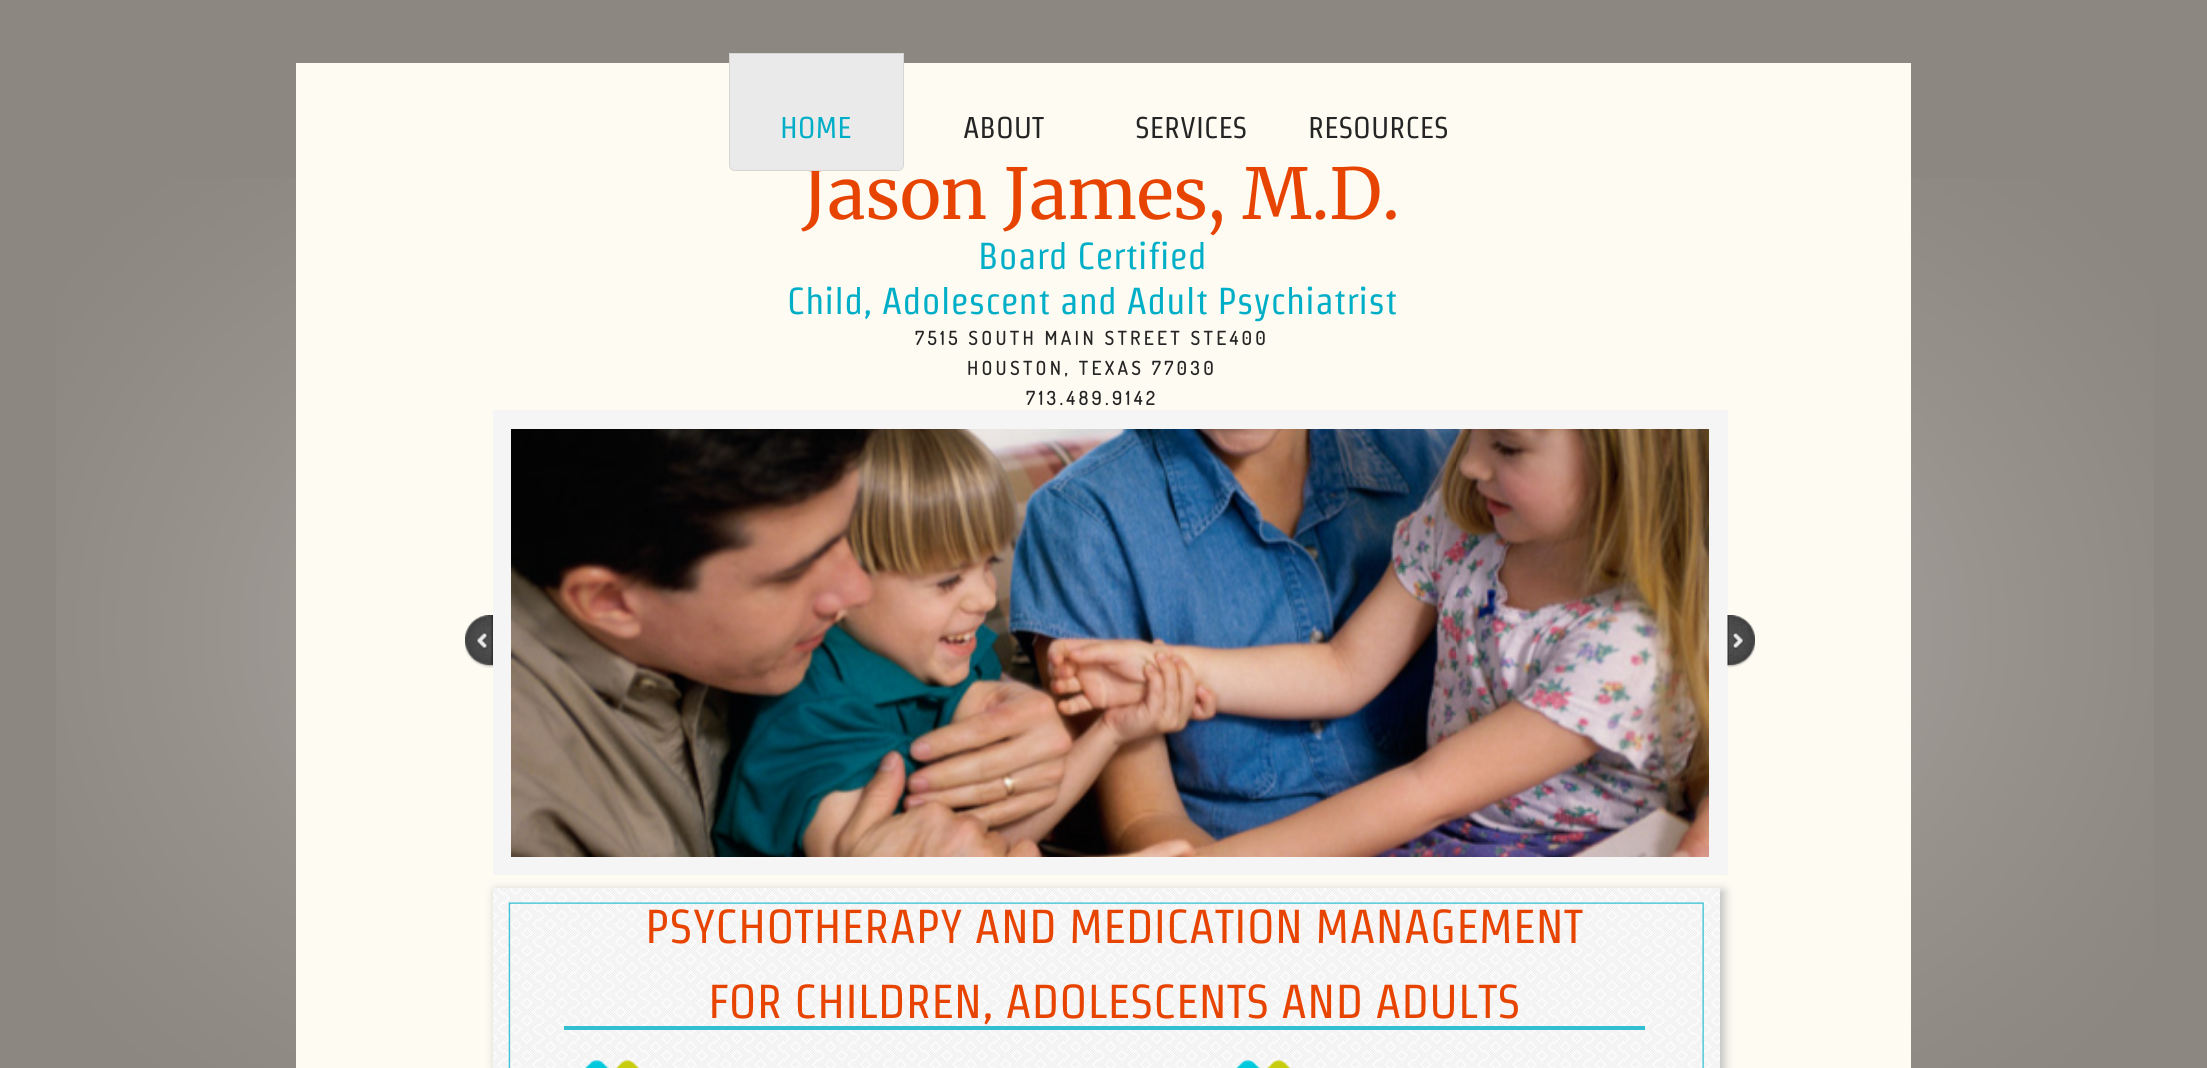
#include <cairo/cairo.h>
#include <math.h>
#include <stddef.h>

static cairo_t *cr;

static void use_color(int r, int g, int b) {
  cairo_set_source_rgb(cr, r / 255.0, g / 255.0, b / 255.0);
}

static void text(double x, double y, const char *s, const char *family, double size, int italic, int bold, int r, int g, int b) {
  cairo_select_font_face(cr, family, italic ? CAIRO_FONT_SLANT_ITALIC : CAIRO_FONT_SLANT_NORMAL,
    bold ? CAIRO_FONT_WEIGHT_BOLD : CAIRO_FONT_WEIGHT_NORMAL);
  cairo_set_font_size(cr, size);
  use_color(r, g, b);
  cairo_move_to(cr, x, y);
  cairo_show_text(cr, s);
}

static void spaced_text(double x, double y, const char *s, double letter, double word) {
  cairo_move_to(cr, x, y);
  while (*s) {
    char ch[5] = {0};
    int n = 0;
    do ch[n++] = *s++; while ((*s & 0xC0) == 0x80);
    cairo_show_text(cr, ch);
    cairo_rel_move_to(cr, letter + word * (*ch == ' '), 0);
  }
}

static void box(double x, double y, double w, double h, int r, int g, int b) {
  use_color(r, g, b);
  cairo_rectangle(cr, x, y, w, h);
  cairo_fill(cr);
}

static void round_rect(double x, double y, double w, double h, double r) {
  cairo_new_sub_path(cr);
  cairo_arc(cr, x + w - r, y + h - r, r, 0, M_PI / 2);
  cairo_arc(cr, x + r, y + h - r, r, M_PI / 2, M_PI);
  cairo_arc(cr, x + r, y + r, r, M_PI, 1.5 * M_PI);
  cairo_arc(cr, x + w - r, y + r, r, 1.5 * M_PI, 2 * M_PI);
  cairo_close_path(cr);
}

static void shadow(double x, double y, double w, double h, double r, double blur, double alpha) {
  cairo_push_group_with_content(cr, CAIRO_CONTENT_ALPHA);
  cairo_set_operator(cr, CAIRO_OPERATOR_SOURCE);
  for (int i = 15; i >= -15 && fmin(w, h) + blur * i / 3 > 0; i -= 2) {
    double e = blur * i / 6;
    cairo_set_source_rgba(cr, 0, 0, 0, alpha * erfc((i - 1) / 8.5) / 2);
    round_rect(x - e, y - e, w + 2 * e, h + 2 * e, fmax(0, fmin(r + e + blur * .6, fmin(w, h) / 2 + e)));
    cairo_fill(cr);
  }
  cairo_pattern_t *soft = cairo_pop_group(cr);
  cairo_mask(cr, soft);
  cairo_pattern_destroy(soft);
}

static void picture(const char *path, double x, double y, double w, double h) {
  cairo_surface_t *image = cairo_image_surface_create_from_png(path);
  cairo_save(cr);
  cairo_set_source_surface(cr, image, x, y);
  cairo_rectangle(cr, x, y, w, h);
  cairo_fill(cr);
  cairo_restore(cr);
  cairo_surface_destroy(image);
}

static void draw(void) {
  use_color(141, 135, 129);
  cairo_paint(cr);
  picture("img_01.png", 56, 178, 2098, 890);
  box(296, 63, 1615, 1005, 253, 251, 242);
  picture("img_02.png", 465, 615, 28, 53);
  cairo_rectangle(cr, 502.5, 419.5, 1216, 446);
  use_color(245, 245, 245);
  cairo_set_line_width(cr, 19);
  cairo_stroke(cr);
  picture("img_03.png", 511, 429, 1198, 428);
  picture("img_04.png", 1727, 615, 28, 53);
  use_color(187, 187, 187);
  shadow(496, 891, 1228, 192, 0, 5, 1);
  picture("img_05.png", 493, 888, 1227, 180);
  box(564, 1026, 1081, 4, 51, 191, 210);
  picture("img_06.png", 585, 1060, 55, 8);
  picture("img_07.png", 1236, 1060, 55, 8);
  text(963, 138, "ABOUT", "Strait", 30, 0, 0, 37, 37, 37);
  text(1135, 138, "SERVICES", "Strait", 30, 0, 0, 37, 37, 37);
  text(1308, 138, "RESOURCES", "Strait", 30, 0, 0, 37, 37, 37);
  text(802, 219, "Jason James, M.D.", "Merriweather Light", 70, 0, 0, 231, 68, 2);
  use_color(234, 234, 234);
  cairo_new_path(cr);
  cairo_move_to(cr, 729.5, 53.5);
  cairo_line_to(cr, 903.5, 53.5);
  cairo_line_to(cr, 903.5, 165);
  cairo_curve_to(cr, 903.5, 168, 901, 170.5, 898, 170.5);
  cairo_line_to(cr, 735, 170.5);
  cairo_curve_to(cr, 732, 170.5, 729.5, 168, 729.5, 165);
  cairo_close_path(cr);
  cairo_fill_preserve(cr);
  use_color(215, 214, 212);
  cairo_set_line_width(cr, 1);
  cairo_stroke(cr);
  text(780, 138, "HOME", "Strait", 30, 0, 0, 0, 175, 199);
  text(978, 269, "Board Certified", "Strait", 37.5, 0, 0, 0, 175, 199);
  text(787, 314, "Child, Adolescent and Adult Psychiatrist", "Strait", 37.5, 0, 0, 0, 175, 199);
  cairo_select_font_face(cr, "Dosis", CAIRO_FONT_SLANT_NORMAL, CAIRO_FONT_WEIGHT_BOLD);
  cairo_set_font_size(cr, 18.75);
  use_color(37, 37, 37);
  spaced_text(915, 345, "7515 SOUTH MAIN STREET STE400", 3.75, 0);
  spaced_text(967, 375, "HOUSTON, TEXAS 77030", 3.75, 0);
  spaced_text(1026, 405, "713.489.9142", 3.75, 0);
  text(645, 943, "PSYCHOTHERAPY AND MEDICATION MANAGEMENT", "Strait", 47.5, 0, 0, 231, 68, 2);
  text(708, 1018, "FOR CHILDREN, ADOLESCENTS AND ADULTS", "Strait", 47.5, 0, 0, 231, 68, 2);
}

int main(void) {
  cairo_surface_t *surface = cairo_image_surface_create(CAIRO_FORMAT_RGB24, 2207, 1068);
  cr = cairo_create(surface);
  cairo_font_options_t *options = cairo_font_options_create();
  cairo_font_options_set_hint_metrics(options, CAIRO_HINT_METRICS_OFF);
  cairo_font_options_set_hint_style(options, CAIRO_HINT_STYLE_NONE);
  cairo_set_font_options(cr, options);
  cairo_set_miter_limit(cr, 4);
  draw();
  cairo_surface_write_to_png(surface, "out.png");
  cairo_font_options_destroy(options);
  cairo_destroy(cr);
  cairo_surface_destroy(surface);
  return 0;
}
